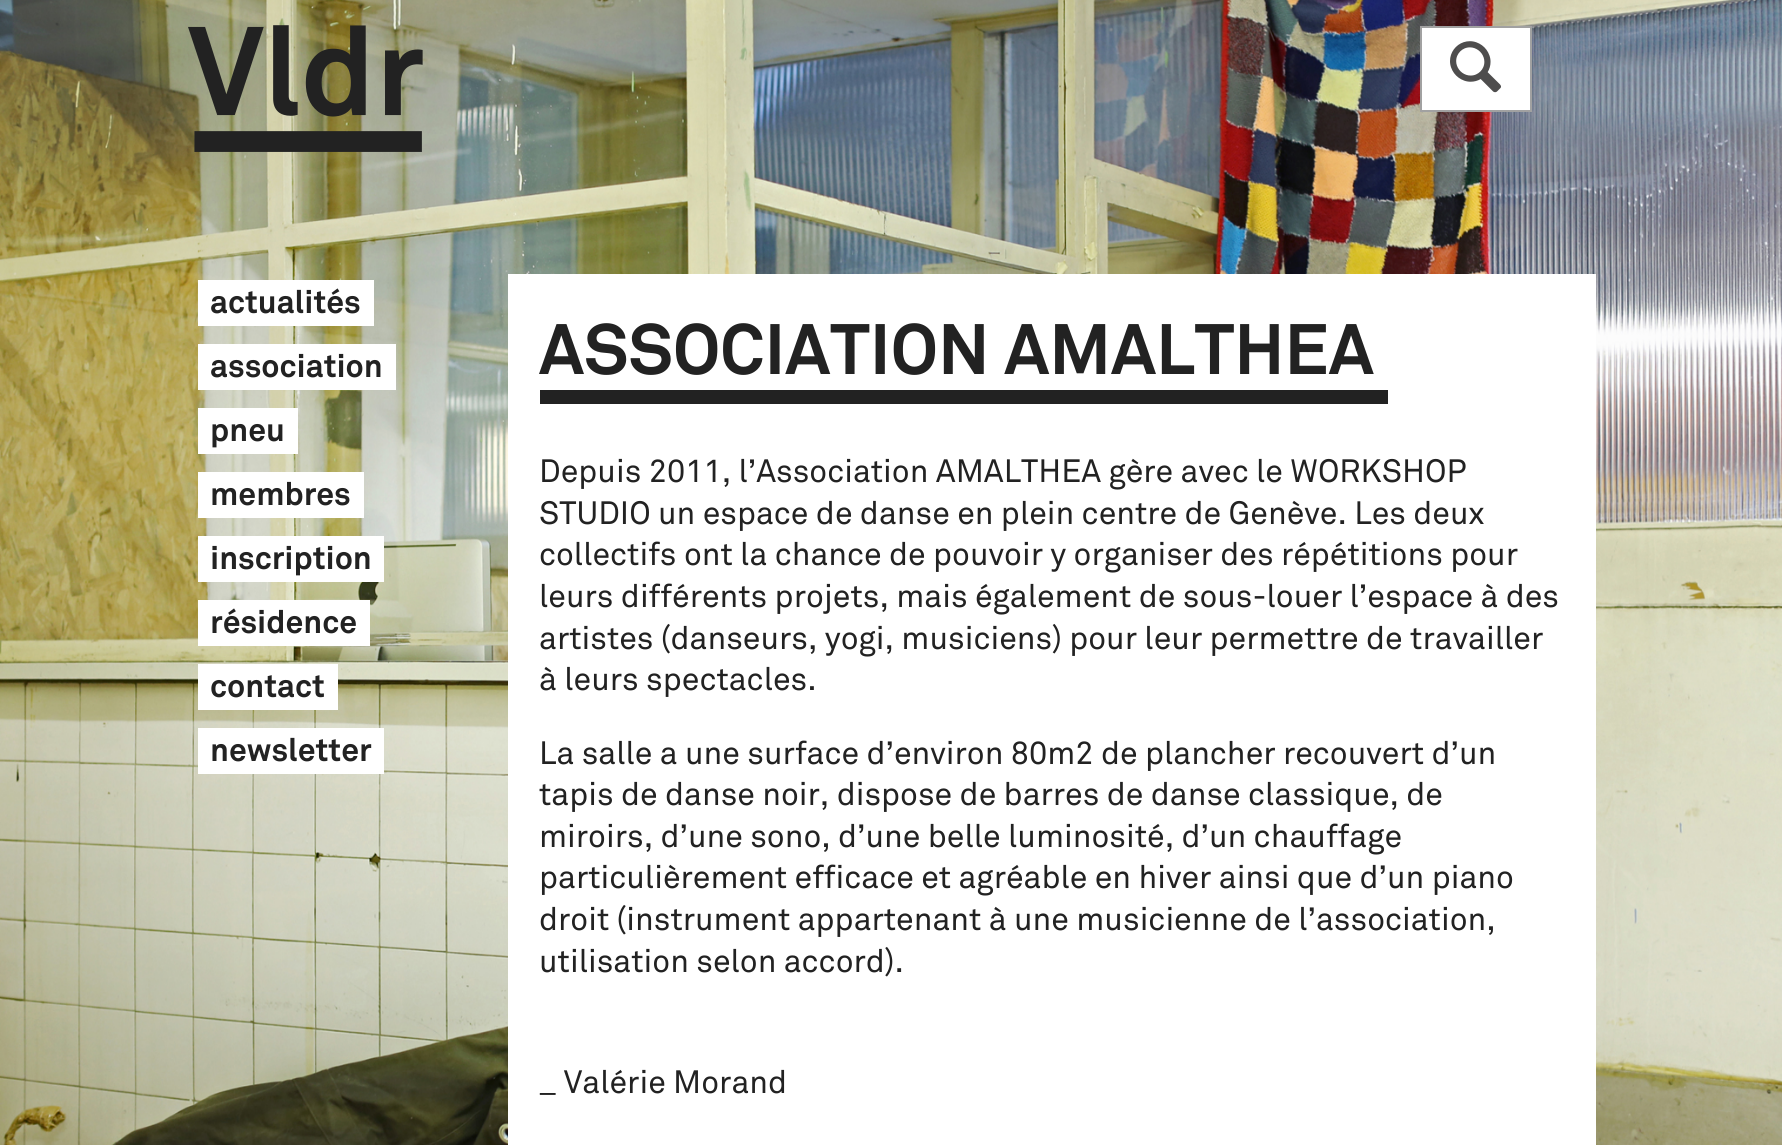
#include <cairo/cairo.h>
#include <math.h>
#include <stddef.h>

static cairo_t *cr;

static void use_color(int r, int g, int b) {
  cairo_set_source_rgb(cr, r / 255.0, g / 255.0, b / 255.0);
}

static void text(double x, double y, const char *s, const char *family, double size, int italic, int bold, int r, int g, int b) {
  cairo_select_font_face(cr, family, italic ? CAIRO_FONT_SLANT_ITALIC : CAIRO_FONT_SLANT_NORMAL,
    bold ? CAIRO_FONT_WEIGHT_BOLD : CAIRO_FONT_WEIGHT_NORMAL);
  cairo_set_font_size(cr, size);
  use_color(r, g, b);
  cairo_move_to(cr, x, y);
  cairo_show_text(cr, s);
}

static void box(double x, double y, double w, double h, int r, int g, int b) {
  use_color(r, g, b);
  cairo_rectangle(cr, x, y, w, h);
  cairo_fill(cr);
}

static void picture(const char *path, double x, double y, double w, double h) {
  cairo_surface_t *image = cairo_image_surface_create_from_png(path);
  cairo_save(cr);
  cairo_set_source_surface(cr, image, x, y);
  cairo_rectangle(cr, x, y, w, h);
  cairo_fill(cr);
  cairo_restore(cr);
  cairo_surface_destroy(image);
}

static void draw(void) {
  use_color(255, 255, 255);
  cairo_paint(cr);
  picture("img_01.png", 0, 0, 1782, 1145);
  picture("img_02.png", 188, 25, 235, 127);
  use_color(255, 255, 255);
  cairo_rectangle(cr, 1421, 27, 110, 84);
  cairo_fill_preserve(cr);
  use_color(161, 161, 161);
  cairo_stroke(cr);
  box(198, 280, 176, 46, 255, 255, 255);
  box(198, 344, 198, 46, 255, 255, 255);
  box(198, 408, 100, 46, 255, 255, 255);
  box(198, 472, 166, 46, 255, 255, 255);
  box(198, 536, 186, 46, 255, 255, 255);
  box(198, 600, 172, 46, 255, 255, 255);
  box(198, 664, 140, 46, 255, 255, 255);
  box(198, 728, 186, 46, 255, 255, 255);
  box(508, 274, 1088, 871, 255, 255, 255);
  box(540, 390, 848, 14, 34, 34, 34);
  text(1450, 89, "R", "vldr", 51, 0, 0, 78, 77, 77);
  text(210, 313, "actualités", "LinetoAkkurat", 32, 0, 1, 34, 34, 34);
  text(210, 377, "association", "LinetoAkkurat", 32, 0, 1, 34, 34, 34);
  text(210, 441, "pneu", "LinetoAkkurat", 32, 0, 1, 34, 34, 34);
  text(210, 505, "membres", "LinetoAkkurat", 32, 0, 1, 34, 34, 34);
  text(210, 569, "inscription", "LinetoAkkurat", 32, 0, 1, 34, 34, 34);
  text(210, 633, "résidence", "LinetoAkkurat", 32, 0, 1, 34, 34, 34);
  text(210, 697, "contact", "LinetoAkkurat", 32, 0, 1, 34, 34, 34);
  text(210, 761, "newsletter", "LinetoAkkurat", 32, 0, 1, 34, 34, 34);
  text(539, 374, "ASSOCIATION AMALTHEA", "LinetoAkkurat", 70.4, 0, 1, 34, 34, 34);
  text(539, 482, "Depuis 2011, l’Association AMALTHEA gère avec le WORKSHOP", "LinetoAkkurat", 32, 0, 0, 34, 34, 34);
  text(539, 524, "STUDIO un espace de danse en plein centre de Genève. Les deux", "LinetoAkkurat", 32, 0, 0, 34, 34, 34);
  text(539, 565, "collectifs ont la chance de pouvoir y organiser des répétitions pour", "LinetoAkkurat", 32, 0, 0, 34, 34, 34);
  text(539, 607, "leurs différents projets, mais également de sous-louer l’espace à des", "LinetoAkkurat", 32, 0, 0, 34, 34, 34);
  text(539, 649, "artistes (danseurs, yogi, musiciens) pour leur permettre de travailler", "LinetoAkkurat", 32, 0, 0, 34, 34, 34);
  text(539, 690, "à leurs spectacles.", "LinetoAkkurat", 32, 0, 0, 34, 34, 34);
  text(539, 764, "La salle a une surface d’environ 80m2 de plancher recouvert d’un", "LinetoAkkurat", 32, 0, 0, 34, 34, 34);
  text(539, 805, "tapis de danse noir, dispose de barres de danse classique, de", "LinetoAkkurat", 32, 0, 0, 34, 34, 34);
  text(539, 847, "miroirs, d’une sono, d’une belle luminosité, d’un chauffage", "LinetoAkkurat", 32, 0, 0, 34, 34, 34);
  text(539, 888, "particulièrement efficace et agréable en hiver ainsi que d’un piano", "LinetoAkkurat", 32, 0, 0, 34, 34, 34);
  text(539, 930, "droit (instrument appartenant à une musicienne de l’association,", "LinetoAkkurat", 32, 0, 0, 34, 34, 34);
  text(539, 972, "utilisation selon accord).", "LinetoAkkurat", 32, 0, 0, 34, 34, 34);
  text(539, 1093, "_ Valérie Morand", "LinetoAkkurat", 32, 0, 0, 34, 34, 34);
}

int main(void) {
  cairo_surface_t *surface = cairo_image_surface_create(CAIRO_FORMAT_RGB24, 1782, 1145);
  cr = cairo_create(surface);
  cairo_font_options_t *options = cairo_font_options_create();
  cairo_font_options_set_hint_metrics(options, CAIRO_HINT_METRICS_OFF);
  cairo_font_options_set_hint_style(options, CAIRO_HINT_STYLE_NONE);
  cairo_set_font_options(cr, options);
  cairo_set_miter_limit(cr, 4);
  draw();
  cairo_surface_write_to_png(surface, "out.png");
  cairo_font_options_destroy(options);
  cairo_destroy(cr);
  cairo_surface_destroy(surface);
  return 0;
}
